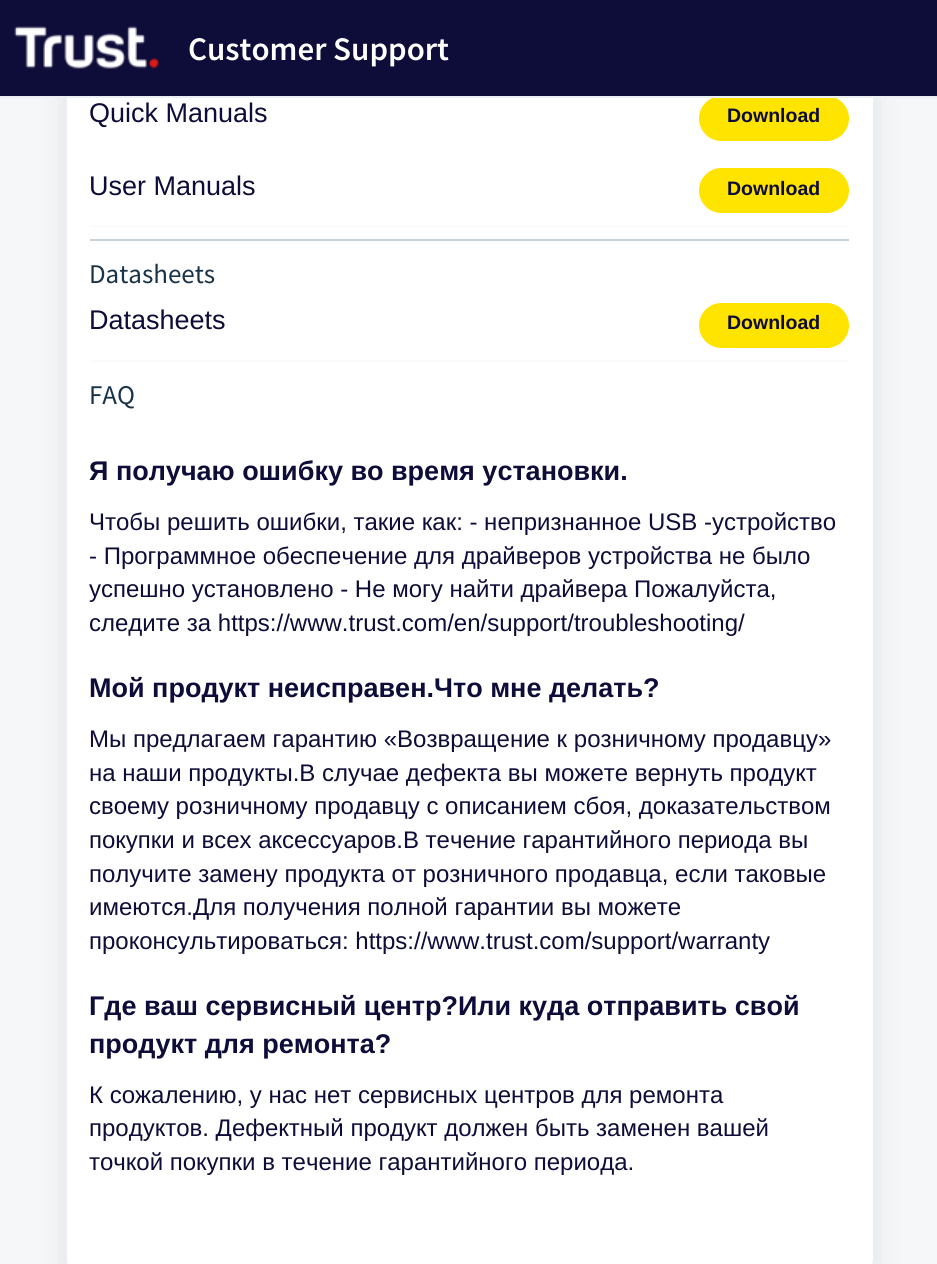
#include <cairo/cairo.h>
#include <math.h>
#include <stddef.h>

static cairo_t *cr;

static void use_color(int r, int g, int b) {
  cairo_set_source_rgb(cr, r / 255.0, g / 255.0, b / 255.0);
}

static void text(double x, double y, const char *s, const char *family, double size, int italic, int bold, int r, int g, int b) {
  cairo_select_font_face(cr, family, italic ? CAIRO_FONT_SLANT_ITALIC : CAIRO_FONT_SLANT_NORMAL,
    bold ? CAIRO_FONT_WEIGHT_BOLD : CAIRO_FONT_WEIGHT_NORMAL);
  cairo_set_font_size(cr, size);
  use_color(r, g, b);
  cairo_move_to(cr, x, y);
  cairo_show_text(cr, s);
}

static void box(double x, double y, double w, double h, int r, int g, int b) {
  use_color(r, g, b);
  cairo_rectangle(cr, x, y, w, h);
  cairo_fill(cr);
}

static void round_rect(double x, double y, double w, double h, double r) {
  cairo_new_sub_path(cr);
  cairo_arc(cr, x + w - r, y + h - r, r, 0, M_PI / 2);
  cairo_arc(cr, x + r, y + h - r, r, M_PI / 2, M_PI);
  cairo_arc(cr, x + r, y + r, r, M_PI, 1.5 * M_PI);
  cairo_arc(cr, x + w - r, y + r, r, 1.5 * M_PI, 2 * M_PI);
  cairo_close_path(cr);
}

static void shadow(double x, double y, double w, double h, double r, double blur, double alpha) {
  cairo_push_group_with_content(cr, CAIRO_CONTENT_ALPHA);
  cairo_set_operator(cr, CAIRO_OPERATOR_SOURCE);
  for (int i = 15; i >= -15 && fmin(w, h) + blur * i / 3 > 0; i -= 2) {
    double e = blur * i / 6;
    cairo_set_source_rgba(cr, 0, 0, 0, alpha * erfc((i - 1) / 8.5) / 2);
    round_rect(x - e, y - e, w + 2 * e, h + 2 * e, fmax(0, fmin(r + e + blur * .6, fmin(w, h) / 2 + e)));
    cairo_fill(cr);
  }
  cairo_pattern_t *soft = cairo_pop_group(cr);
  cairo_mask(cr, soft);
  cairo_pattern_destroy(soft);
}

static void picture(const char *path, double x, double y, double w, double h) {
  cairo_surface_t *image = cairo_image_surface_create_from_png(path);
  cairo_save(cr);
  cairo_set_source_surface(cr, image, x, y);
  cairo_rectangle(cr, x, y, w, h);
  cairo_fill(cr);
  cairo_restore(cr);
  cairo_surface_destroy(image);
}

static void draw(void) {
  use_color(245, 247, 249);
  cairo_paint(cr);
  box(65, 1259, 810, 5, 255, 255, 255);
  use_color(39, 49, 58);
  shadow(65, -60, 810, 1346, 18, 14, 0.1);
  use_color(255, 255, 255);
  round_rect(66, -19, 808, 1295, 17);
  cairo_fill_preserve(cr);
  use_color(235, 239, 243);
  cairo_stroke(cr);
  box(0, 0, 937, 96, 14, 12, 56);
  use_color(255, 228, 0);
  round_rect(699, 96, 150, 45, 22.5);
  cairo_fill(cr);
  box(0, 96, 937, 2, 235, 239, 243);
  picture("img_01.png", 14, 26, 145, 44);
  use_color(255, 228, 0);
  round_rect(699, 168, 150, 45, 22.5);
  cairo_fill(cr);
  box(90, 225, 759, 2, 250, 251, 252);
  box(90, 239, 759, 2, 201, 210, 217);
  use_color(255, 228, 0);
  round_rect(699, 303, 150, 45, 22.5);
  cairo_fill(cr);
  box(90, 360, 759, 2, 250, 251, 252);
  text(188, 60, "Customer Support", "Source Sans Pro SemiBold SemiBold", 33, 0, 0, 255, 255, 255);
  text(89, 122, "Quick Manuals", "Liberation Sans", 27, 0, 0, 14, 12, 56);
  text(727, 122, "Download", "Liberation Sans", 19.5, 0, 1, 14, 12, 56);
  text(89, 195, "User Manuals", "Liberation Sans", 27, 0, 0, 14, 12, 56);
  text(727, 195, "Download", "Liberation Sans", 19.5, 0, 1, 14, 12, 56);
  text(89, 283, "Datasheets", "Source Sans Pro", 27, 0, 0, 24, 50, 71);
  text(89, 329, "Datasheets", "Liberation Sans", 27, 0, 0, 14, 12, 56);
  text(727, 329, "Download", "Liberation Sans", 19.5, 0, 1, 14, 12, 56);
  text(89, 404, "FAQ", "Source Sans Pro", 27, 0, 0, 24, 50, 71);
  text(89, 480, "Я получаю ошибку во время установки.", "Liberation Sans", 27, 0, 1, 14, 12, 56);
  text(89, 530, "Чтобы решить ошибки, такие как: - непризнанное USB -устройство", "Liberation Sans", 24, 0, 0, 14, 12, 56);
  text(89, 564, "- Программное обеспечение для драйверов устройства не было", "Liberation Sans", 24, 0, 0, 14, 12, 56);
  text(89, 597, "успешно установлено - Не могу найти драйвера Пожалуйста,", "Liberation Sans", 24, 0, 0, 14, 12, 56);
  text(89, 631, "следите за https://www.trust.com/en/support/troubleshooting/", "Liberation Sans", 24, 0, 0, 14, 12, 56);
  text(89, 697, "Мой продукт неисправен.Что мне делать?", "Liberation Sans", 27, 0, 1, 14, 12, 56);
  text(89, 747, "Мы предлагаем гарантию «Возвращение к розничному продавцу»", "Liberation Sans", 24, 0, 0, 14, 12, 56);
  text(89, 781, "на наши продукты.В случае дефекта вы можете вернуть продукт", "Liberation Sans", 24, 0, 0, 14, 12, 56);
  text(89, 814, "своему розничному продавцу с описанием сбоя, доказательством", "Liberation Sans", 24, 0, 0, 14, 12, 56);
  text(89, 848, "покупки и всех аксессуаров.В течение гарантийного периода вы", "Liberation Sans", 24, 0, 0, 14, 12, 56);
  text(89, 882, "получите замену продукта от розничного продавца, если таковые", "Liberation Sans", 24, 0, 0, 14, 12, 56);
  text(89, 915, "имеются.Для получения полной гарантии вы можете", "Liberation Sans", 24, 0, 0, 14, 12, 56);
  text(89, 949, "проконсультироваться: https://www.trust.com/support/warranty", "Liberation Sans", 24, 0, 0, 14, 12, 56);
  text(89, 1015, "Где ваш сервисный центр?Или куда отправить свой", "Liberation Sans", 27, 0, 1, 14, 12, 56);
  text(89, 1053, "продукт для ремонта?", "Liberation Sans", 27, 0, 1, 14, 12, 56);
  text(89, 1103, "К сожалению, у нас нет сервисных центров для ремонта", "Liberation Sans", 24, 0, 0, 14, 12, 56);
  text(89, 1136, "продуктов. Дефектный продукт должен быть заменен вашей", "Liberation Sans", 24, 0, 0, 14, 12, 56);
  text(89, 1170, "точкой покупки в течение гарантийного периода.", "Liberation Sans", 24, 0, 0, 14, 12, 56);
}

int main(void) {
  cairo_surface_t *surface = cairo_image_surface_create(CAIRO_FORMAT_RGB24, 937, 1264);
  cr = cairo_create(surface);
  cairo_font_options_t *options = cairo_font_options_create();
  cairo_font_options_set_hint_metrics(options, CAIRO_HINT_METRICS_OFF);
  cairo_font_options_set_hint_style(options, CAIRO_HINT_STYLE_NONE);
  cairo_set_font_options(cr, options);
  cairo_set_miter_limit(cr, 4);
  draw();
  cairo_surface_write_to_png(surface, "out.png");
  cairo_font_options_destroy(options);
  cairo_destroy(cr);
  cairo_surface_destroy(surface);
  return 0;
}
